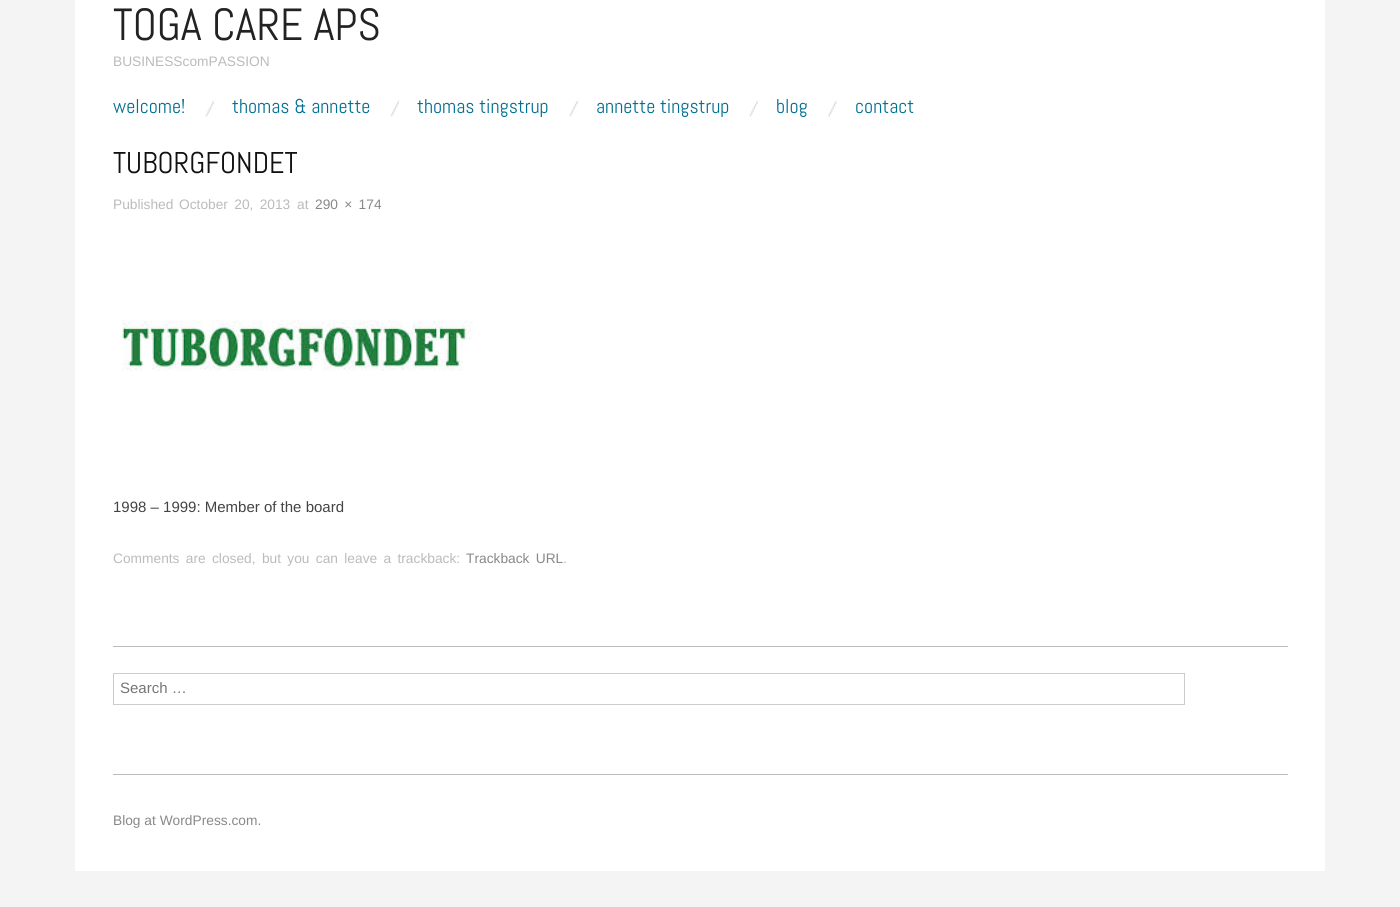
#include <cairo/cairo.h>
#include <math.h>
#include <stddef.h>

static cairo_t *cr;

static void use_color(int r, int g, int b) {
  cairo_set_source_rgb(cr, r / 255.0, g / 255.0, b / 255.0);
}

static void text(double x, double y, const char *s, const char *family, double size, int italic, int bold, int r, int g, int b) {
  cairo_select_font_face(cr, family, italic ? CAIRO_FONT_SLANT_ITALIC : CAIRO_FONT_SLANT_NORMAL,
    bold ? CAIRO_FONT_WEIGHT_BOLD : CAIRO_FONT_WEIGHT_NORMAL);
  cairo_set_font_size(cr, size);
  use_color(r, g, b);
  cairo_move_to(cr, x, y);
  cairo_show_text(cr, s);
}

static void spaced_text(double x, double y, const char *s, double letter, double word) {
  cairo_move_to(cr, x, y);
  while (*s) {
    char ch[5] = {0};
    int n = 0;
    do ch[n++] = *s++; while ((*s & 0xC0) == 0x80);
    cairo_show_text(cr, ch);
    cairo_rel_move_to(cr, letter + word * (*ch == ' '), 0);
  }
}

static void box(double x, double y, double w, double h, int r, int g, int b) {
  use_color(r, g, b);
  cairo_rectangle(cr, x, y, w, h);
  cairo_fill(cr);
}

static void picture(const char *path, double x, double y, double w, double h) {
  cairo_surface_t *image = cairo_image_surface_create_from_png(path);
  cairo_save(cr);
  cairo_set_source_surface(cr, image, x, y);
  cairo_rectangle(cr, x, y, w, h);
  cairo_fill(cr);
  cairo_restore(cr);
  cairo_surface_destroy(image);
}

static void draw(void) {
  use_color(244, 244, 244);
  cairo_paint(cr);
  box(75, 0, 1250, 871, 255, 255, 255);
  picture("img_01.png", 205, 100, 10, 17);
  picture("img_01.png", 390, 100, 10, 17);
  picture("img_02.png", 569, 100, 10, 17);
  picture("img_02.png", 749, 100, 10, 17);
  picture("img_03.png", 828, 100, 9, 17);
  picture("img_04.png", 122, 320, 351, 51);
  box(113, 646, 1175, 1, 187, 187, 187);
  cairo_rectangle(cr, 113.5, 673.5, 1071, 31);
  use_color(204, 204, 204);
  cairo_set_line_width(cr, 1);
  cairo_stroke(cr);
  box(113, 774, 1175, 1, 187, 187, 187);
  text(113, 40, "TOGA CARE APS", "Abel", 45, 0, 0, 34, 34, 34);
  text(113, 66, "BUSINESScomPASSION", "Liberation Sans", 13.75, 0, 0, 187, 187, 187);
  text(113, 113, "welcome!", "Abel", 20, 0, 0, 2, 111, 144);
  text(232, 113, "thomas & annette", "Abel", 20, 0, 0, 2, 111, 144);
  text(417, 113, "thomas tingstrup", "Abel", 20, 0, 0, 2, 111, 144);
  text(596, 113, "annette tingstrup", "Abel", 20, 0, 0, 2, 111, 144);
  text(776, 113, "blog", "Abel", 20, 0, 0, 2, 111, 144);
  text(855, 113, "contact", "Abel", 20, 0, 0, 2, 111, 144);
  text(113, 173, "TUBORGFONDET", "Abel", 30, 0, 0, 17, 17, 17);
  text(113, 209, "Published", "Liberation Sans", 13.75, 0, 0, 187, 187, 187);
  spaced_text(179, 209, "October 20, 2013", 0, 2.5);
  text(297, 209, "at", "Liberation Sans", 13.75, 0, 0, 187, 187, 187);
  use_color(136, 136, 136);
  spaced_text(315, 209, "290 × 174", 0, 2.5);
  text(113, 512, "1998 – 1999: Member of the board", "Liberation Sans", 15, 0, 0, 68, 68, 68);
  cairo_set_font_size(cr, 13.75);
  use_color(187, 187, 187);
  spaced_text(113, 563, "Comments are closed, but you can leave a trackback:", 0, 2.5);
  use_color(136, 136, 136);
  spaced_text(466, 563, "Trackback URL", 0, 2.5);
  text(563, 563, ".", "Liberation Sans", 13.75, 0, 0, 187, 187, 187);
  text(120, 693, "Search …", "Liberation Sans", 15, 0, 0, 117, 117, 117);
  text(113, 825, "Blog at WordPress.com.", "Liberation Sans", 13.75, 0, 0, 136, 136, 136);
}

int main(void) {
  cairo_surface_t *surface = cairo_image_surface_create(CAIRO_FORMAT_RGB24, 1400, 907);
  cr = cairo_create(surface);
  cairo_font_options_t *options = cairo_font_options_create();
  cairo_font_options_set_hint_metrics(options, CAIRO_HINT_METRICS_OFF);
  cairo_font_options_set_hint_style(options, CAIRO_HINT_STYLE_NONE);
  cairo_set_font_options(cr, options);
  cairo_set_miter_limit(cr, 4);
  draw();
  cairo_surface_write_to_png(surface, "out.png");
  cairo_font_options_destroy(options);
  cairo_destroy(cr);
  cairo_surface_destroy(surface);
  return 0;
}
